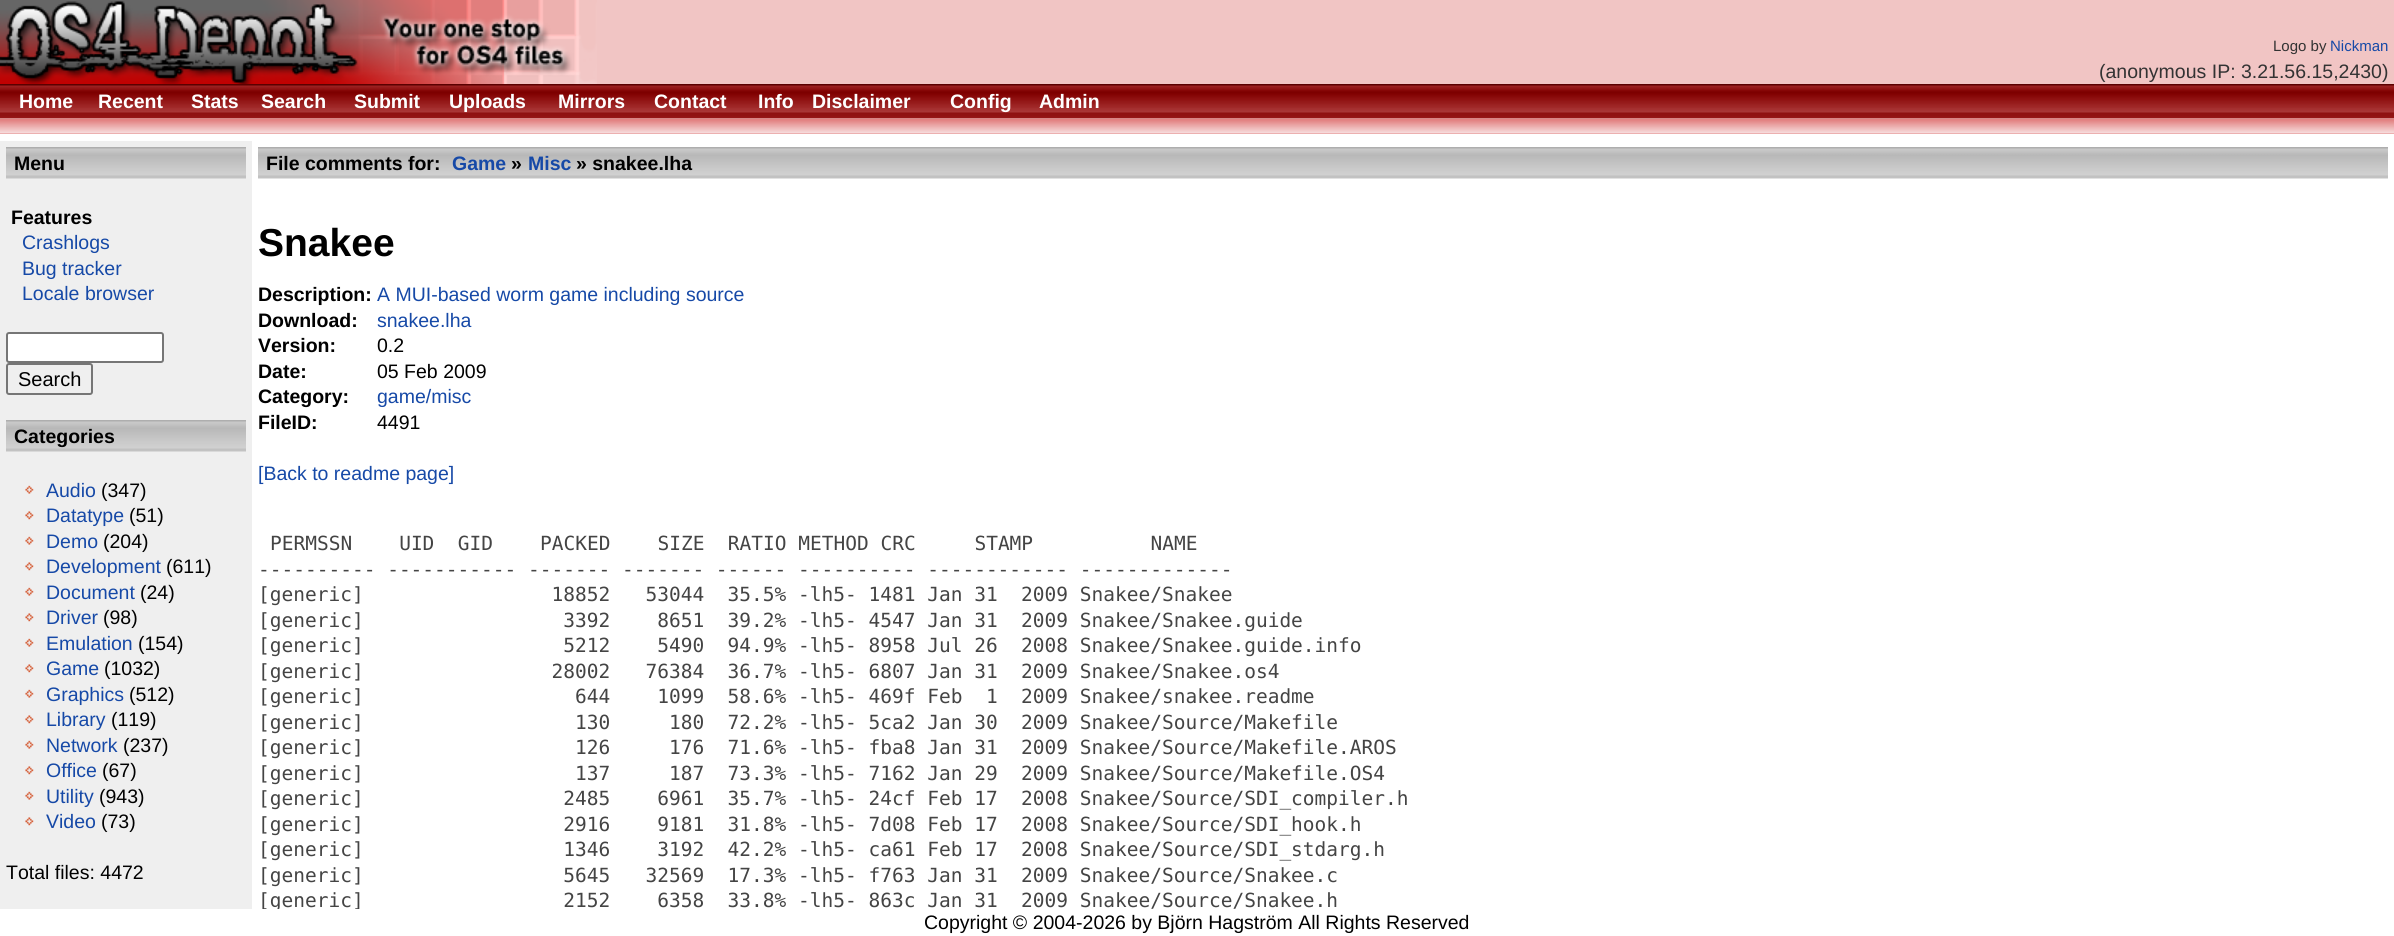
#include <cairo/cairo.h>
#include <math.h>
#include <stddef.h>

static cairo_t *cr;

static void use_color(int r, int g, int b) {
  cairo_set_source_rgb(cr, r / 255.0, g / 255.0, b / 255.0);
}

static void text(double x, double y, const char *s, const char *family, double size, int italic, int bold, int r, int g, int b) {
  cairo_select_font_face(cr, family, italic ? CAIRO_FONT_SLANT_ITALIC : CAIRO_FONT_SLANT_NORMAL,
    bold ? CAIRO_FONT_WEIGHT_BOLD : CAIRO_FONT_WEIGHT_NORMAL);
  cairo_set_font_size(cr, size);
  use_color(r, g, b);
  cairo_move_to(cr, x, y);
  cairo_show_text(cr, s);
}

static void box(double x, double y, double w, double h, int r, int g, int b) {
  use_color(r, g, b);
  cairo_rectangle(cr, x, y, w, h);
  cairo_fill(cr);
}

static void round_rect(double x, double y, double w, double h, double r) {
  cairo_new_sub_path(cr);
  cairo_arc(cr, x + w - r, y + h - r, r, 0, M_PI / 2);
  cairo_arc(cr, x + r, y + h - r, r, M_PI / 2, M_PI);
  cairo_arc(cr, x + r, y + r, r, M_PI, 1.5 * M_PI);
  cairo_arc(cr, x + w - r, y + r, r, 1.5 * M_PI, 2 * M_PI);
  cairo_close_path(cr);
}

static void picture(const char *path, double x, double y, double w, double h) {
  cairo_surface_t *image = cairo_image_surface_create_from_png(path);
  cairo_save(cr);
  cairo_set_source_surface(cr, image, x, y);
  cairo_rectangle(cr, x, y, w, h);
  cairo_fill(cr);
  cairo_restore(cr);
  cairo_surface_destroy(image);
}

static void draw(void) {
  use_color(255, 255, 255);
  cairo_paint(cr);
  box(597, 0, 1797, 84, 241, 197, 196);
  picture("img_01.png", 0, 0, 597, 84);
  picture("img_02.png", 0, 84, 2394, 35);
  box(0, 133, 2394, 1, 225, 128, 128);
  picture("img_03.png", 0, 118, 2394, 16);
  box(0, 141, 252, 768, 239, 239, 239);
  picture("img_04.png", 6, 147, 240, 32);
  use_color(255, 255, 255);
  round_rect(7, 333, 156, 29, 2);
  cairo_fill_preserve(cr);
  use_color(118, 118, 118);
  cairo_stroke(cr);
  round_rect(7, 364, 85, 30, 2);
  cairo_stroke(cr);
  picture("img_05.png", 6, 420, 240, 32);
  picture("img_06.png", 25, 485, 9, 9);
  picture("img_07.png", 25, 511, 9, 9);
  picture("img_06.png", 25, 536, 9, 9);
  picture("img_07.png", 25, 562, 9, 9);
  picture("img_06.png", 25, 587, 9, 9);
  picture("img_07.png", 25, 613, 9, 9);
  picture("img_06.png", 25, 638, 9, 9);
  picture("img_07.png", 25, 664, 9, 9);
  picture("img_06.png", 25, 689, 9, 9);
  picture("img_07.png", 25, 715, 9, 9);
  picture("img_06.png", 25, 740, 9, 9);
  picture("img_07.png", 25, 766, 9, 9);
  picture("img_06.png", 25, 791, 9, 9);
  picture("img_07.png", 25, 817, 9, 9);
  picture("img_08.png", 258, 147, 2130, 32);
  text(2273, 51, "Logo by", "Liberation Sans", 15, 0, 0, 51, 51, 51);
  text(2330, 51, "Nickman", "Liberation Sans", 15, 0, 0, 22, 73, 167);
  text(2099, 78, "(anonymous IP: 3.21.56.15,2430)", "Liberation Sans", 19.5, 0, 0, 51, 51, 51);
  text(19, 108, "Home", "Liberation Sans", 19.5, 0, 1, 255, 255, 255);
  text(98, 108, "Recent", "Liberation Sans", 19.5, 0, 1, 255, 255, 255);
  text(191, 108, "Stats", "Liberation Sans", 19.5, 0, 1, 255, 255, 255);
  text(261, 108, "Search", "Liberation Sans", 19.5, 0, 1, 255, 255, 255);
  text(354, 108, "Submit", "Liberation Sans", 19.5, 0, 1, 255, 255, 255);
  text(449, 108, "Uploads", "Liberation Sans", 19.5, 0, 1, 255, 255, 255);
  text(558, 108, "Mirrors", "Liberation Sans", 19.5, 0, 1, 255, 255, 255);
  text(654, 108, "Contact", "Liberation Sans", 19.5, 0, 1, 255, 255, 255);
  text(758, 108, "Info", "Liberation Sans", 19.5, 0, 1, 255, 255, 255);
  text(812, 108, "Disclaimer", "Liberation Sans", 19.5, 0, 1, 255, 255, 255);
  text(950, 108, "Config", "Liberation Sans", 19.5, 0, 1, 255, 255, 255);
  text(1039, 108, "Admin", "Liberation Sans", 19.5, 0, 1, 255, 255, 255);
  text(14, 170, "Menu", "Liberation Sans", 19.5, 0, 1, 0, 0, 0);
  text(11, 224, "Features", "Liberation Sans", 19.5, 0, 1, 0, 0, 0);
  text(22, 249, "Crashlogs", "Liberation Sans", 19.5, 0, 0, 22, 73, 167);
  text(22, 275, "Bug tracker", "Liberation Sans", 19.5, 0, 0, 22, 73, 167);
  text(22, 300, "Locale browser", "Liberation Sans", 19.5, 0, 0, 22, 73, 167);
  text(18, 386, "Search", "Liberation Sans", 20, 0, 0, 0, 0, 0);
  text(14, 443, "Categories", "Liberation Sans", 19.5, 0, 1, 0, 0, 0);
  text(46, 497, "Audio", "Liberation Sans", 19.5, 0, 0, 22, 73, 167);
  text(101, 497, "(347)", "Liberation Sans", 19.5, 0, 0, 0, 0, 0);
  text(46, 522, "Datatype", "Liberation Sans", 19.5, 0, 0, 22, 73, 167);
  text(129, 522, "(51)", "Liberation Sans", 19.5, 0, 0, 0, 0, 0);
  text(46, 548, "Demo", "Liberation Sans", 19.5, 0, 0, 22, 73, 167);
  text(103, 548, "(204)", "Liberation Sans", 19.5, 0, 0, 0, 0, 0);
  text(46, 573, "Development", "Liberation Sans", 19.5, 0, 0, 22, 73, 167);
  text(166, 573, "(611)", "Liberation Sans", 19.5, 0, 0, 0, 0, 0);
  text(46, 599, "Document", "Liberation Sans", 19.5, 0, 0, 22, 73, 167);
  text(140, 599, "(24)", "Liberation Sans", 19.5, 0, 0, 0, 0, 0);
  text(46, 624, "Driver", "Liberation Sans", 19.5, 0, 0, 22, 73, 167);
  text(103, 624, "(98)", "Liberation Sans", 19.5, 0, 0, 0, 0, 0);
  text(46, 650, "Emulation", "Liberation Sans", 19.5, 0, 0, 22, 73, 167);
  text(138, 650, "(154)", "Liberation Sans", 19.5, 0, 0, 0, 0, 0);
  text(46, 675, "Game", "Liberation Sans", 19.5, 0, 0, 22, 73, 167);
  text(104, 675, "(1032)", "Liberation Sans", 19.5, 0, 0, 0, 0, 0);
  text(46, 701, "Graphics", "Liberation Sans", 19.5, 0, 0, 22, 73, 167);
  text(129, 701, "(512)", "Liberation Sans", 19.5, 0, 0, 0, 0, 0);
  text(46, 726, "Library", "Liberation Sans", 19.5, 0, 0, 22, 73, 167);
  text(111, 726, "(119)", "Liberation Sans", 19.5, 0, 0, 0, 0, 0);
  text(46, 752, "Network", "Liberation Sans", 19.5, 0, 0, 22, 73, 167);
  text(123, 752, "(237)", "Liberation Sans", 19.5, 0, 0, 0, 0, 0);
  text(46, 777, "Office", "Liberation Sans", 19.5, 0, 0, 22, 73, 167);
  text(102, 777, "(67)", "Liberation Sans", 19.5, 0, 0, 0, 0, 0);
  text(46, 803, "Utility", "Liberation Sans", 19.5, 0, 0, 22, 73, 167);
  text(99, 803, "(943)", "Liberation Sans", 19.5, 0, 0, 0, 0, 0);
  text(46, 828, "Video", "Liberation Sans", 19.5, 0, 0, 22, 73, 167);
  text(101, 828, "(73)", "Liberation Sans", 19.5, 0, 0, 0, 0, 0);
  text(6, 879, "Total files: 4472", "Liberation Sans", 19.5, 0, 0, 0, 0, 0);
  text(266, 170, "File comments for:", "Liberation Sans", 19.5, 0, 1, 0, 0, 0);
  text(452, 170, "Game", "Liberation Sans", 19.5, 0, 1, 22, 73, 167);
  text(511, 170, "»", "Liberation Sans", 19.5, 0, 1, 0, 0, 0);
  text(528, 170, "Misc", "Liberation Sans", 19.5, 0, 1, 22, 73, 167);
  text(576, 170, "» snakee.lha", "Liberation Sans", 19.5, 0, 1, 0, 0, 0);
  text(258, 256, "Snakee", "Liberation Sans", 39, 0, 1, 0, 0, 0);
  text(258, 301, "Description:", "Liberation Sans", 19.5, 0, 1, 0, 0, 0);
  text(377, 301, "A MUI-based worm game including source", "Liberation Sans", 19.5, 0, 0, 22, 73, 167);
  text(258, 327, "Download:", "Liberation Sans", 19.5, 0, 1, 0, 0, 0);
  text(377, 327, "snakee.lha", "Liberation Sans", 19.5, 0, 0, 22, 73, 167);
  text(258, 352, "Version:", "Liberation Sans", 19.5, 0, 1, 0, 0, 0);
  text(377, 352, "0.2", "Liberation Sans", 19.5, 0, 0, 0, 0, 0);
  text(258, 378, "Date:", "Liberation Sans", 19.5, 0, 1, 0, 0, 0);
  text(377, 378, "05 Feb 2009", "Liberation Sans", 19.5, 0, 0, 0, 0, 0);
  text(258, 403, "Category:", "Liberation Sans", 19.5, 0, 1, 0, 0, 0);
  text(377, 403, "game/misc", "Liberation Sans", 19.5, 0, 0, 22, 73, 167);
  text(258, 429, "FileID:", "Liberation Sans", 19.5, 0, 1, 0, 0, 0);
  text(377, 429, "4491", "Liberation Sans", 19.5, 0, 0, 0, 0, 0);
  text(258, 480, "[Back to readme page]", "Liberation Sans", 19.5, 0, 0, 22, 73, 167);
  text(270, 550, "PERMSSN    UID  GID    PACKED    SIZE  RATIO METHOD CRC     STAMP          NAME", "DejaVu Sans Mono", 19.5, 0, 0, 68, 68, 68);
  text(258, 576, "---------- ----------- ------- ------- ------ ---------- ------------ -------------", "DejaVu Sans Mono", 19.5, 0, 0, 68, 68, 68);
  text(258, 601, "[generic]                18852   53044  35.5% -lh5- 1481 Jan 31  2009 Snakee/Snakee", "DejaVu Sans Mono", 19.5, 0, 0, 68, 68, 68);
  text(258, 627, "[generic]                 3392    8651  39.2% -lh5- 4547 Jan 31  2009 Snakee/Snakee.guide", "DejaVu Sans Mono", 19.5, 0, 0, 68, 68, 68);
  text(258, 652, "[generic]                 5212    5490  94.9% -lh5- 8958 Jul 26  2008 Snakee/Snakee.guide.info", "DejaVu Sans Mono", 19.5, 0, 0, 68, 68, 68);
  text(258, 678, "[generic]                28002   76384  36.7% -lh5- 6807 Jan 31  2009 Snakee/Snakee.os4", "DejaVu Sans Mono", 19.5, 0, 0, 68, 68, 68);
  text(258, 703, "[generic]                  644    1099  58.6% -lh5- 469f Feb  1  2009 Snakee/snakee.readme", "DejaVu Sans Mono", 19.5, 0, 0, 68, 68, 68);
  text(258, 729, "[generic]                  130     180  72.2% -lh5- 5ca2 Jan 30  2009 Snakee/Source/Makefile", "DejaVu Sans Mono", 19.5, 0, 0, 68, 68, 68);
  text(258, 754, "[generic]                  126     176  71.6% -lh5- fba8 Jan 31  2009 Snakee/Source/Makefile.AROS", "DejaVu Sans Mono", 19.5, 0, 0, 68, 68, 68);
  text(258, 780, "[generic]                  137     187  73.3% -lh5- 7162 Jan 29  2009 Snakee/Source/Makefile.OS4", "DejaVu Sans Mono", 19.5, 0, 0, 68, 68, 68);
  text(258, 805, "[generic]                 2485    6961  35.7% -lh5- 24cf Feb 17  2008 Snakee/Source/SDI_compiler.h", "DejaVu Sans Mono", 19.5, 0, 0, 68, 68, 68);
  text(258, 831, "[generic]                 2916    9181  31.8% -lh5- 7d08 Feb 17  2008 Snakee/Source/SDI_hook.h", "DejaVu Sans Mono", 19.5, 0, 0, 68, 68, 68);
  text(258, 856, "[generic]                 1346    3192  42.2% -lh5- ca61 Feb 17  2008 Snakee/Source/SDI_stdarg.h", "DejaVu Sans Mono", 19.5, 0, 0, 68, 68, 68);
  text(258, 882, "[generic]                 5645   32569  17.3% -lh5- f763 Jan 31  2009 Snakee/Source/Snakee.c", "DejaVu Sans Mono", 19.5, 0, 0, 68, 68, 68);
  text(258, 907, "[generic]                 2152    6358  33.8% -lh5- 863c Jan 31  2009 Snakee/Source/Snakee.h", "DejaVu Sans Mono", 19.5, 0, 0, 68, 68, 68);
  box(262, 909, 98, 3, 255, 255, 255);
  text(924, 929, "Copyright © 2004-2026 by Björn Hagström All Rights Reserved", "Liberation Sans", 19.5, 0, 0, 0, 0, 0);
}

int main(void) {
  cairo_surface_t *surface = cairo_image_surface_create(CAIRO_FORMAT_RGB24, 2394, 936);
  cr = cairo_create(surface);
  cairo_font_options_t *options = cairo_font_options_create();
  cairo_font_options_set_hint_metrics(options, CAIRO_HINT_METRICS_OFF);
  cairo_font_options_set_hint_style(options, CAIRO_HINT_STYLE_NONE);
  cairo_set_font_options(cr, options);
  cairo_set_miter_limit(cr, 4);
  draw();
  cairo_surface_write_to_png(surface, "out.png");
  cairo_font_options_destroy(options);
  cairo_destroy(cr);
  cairo_surface_destroy(surface);
  return 0;
}
